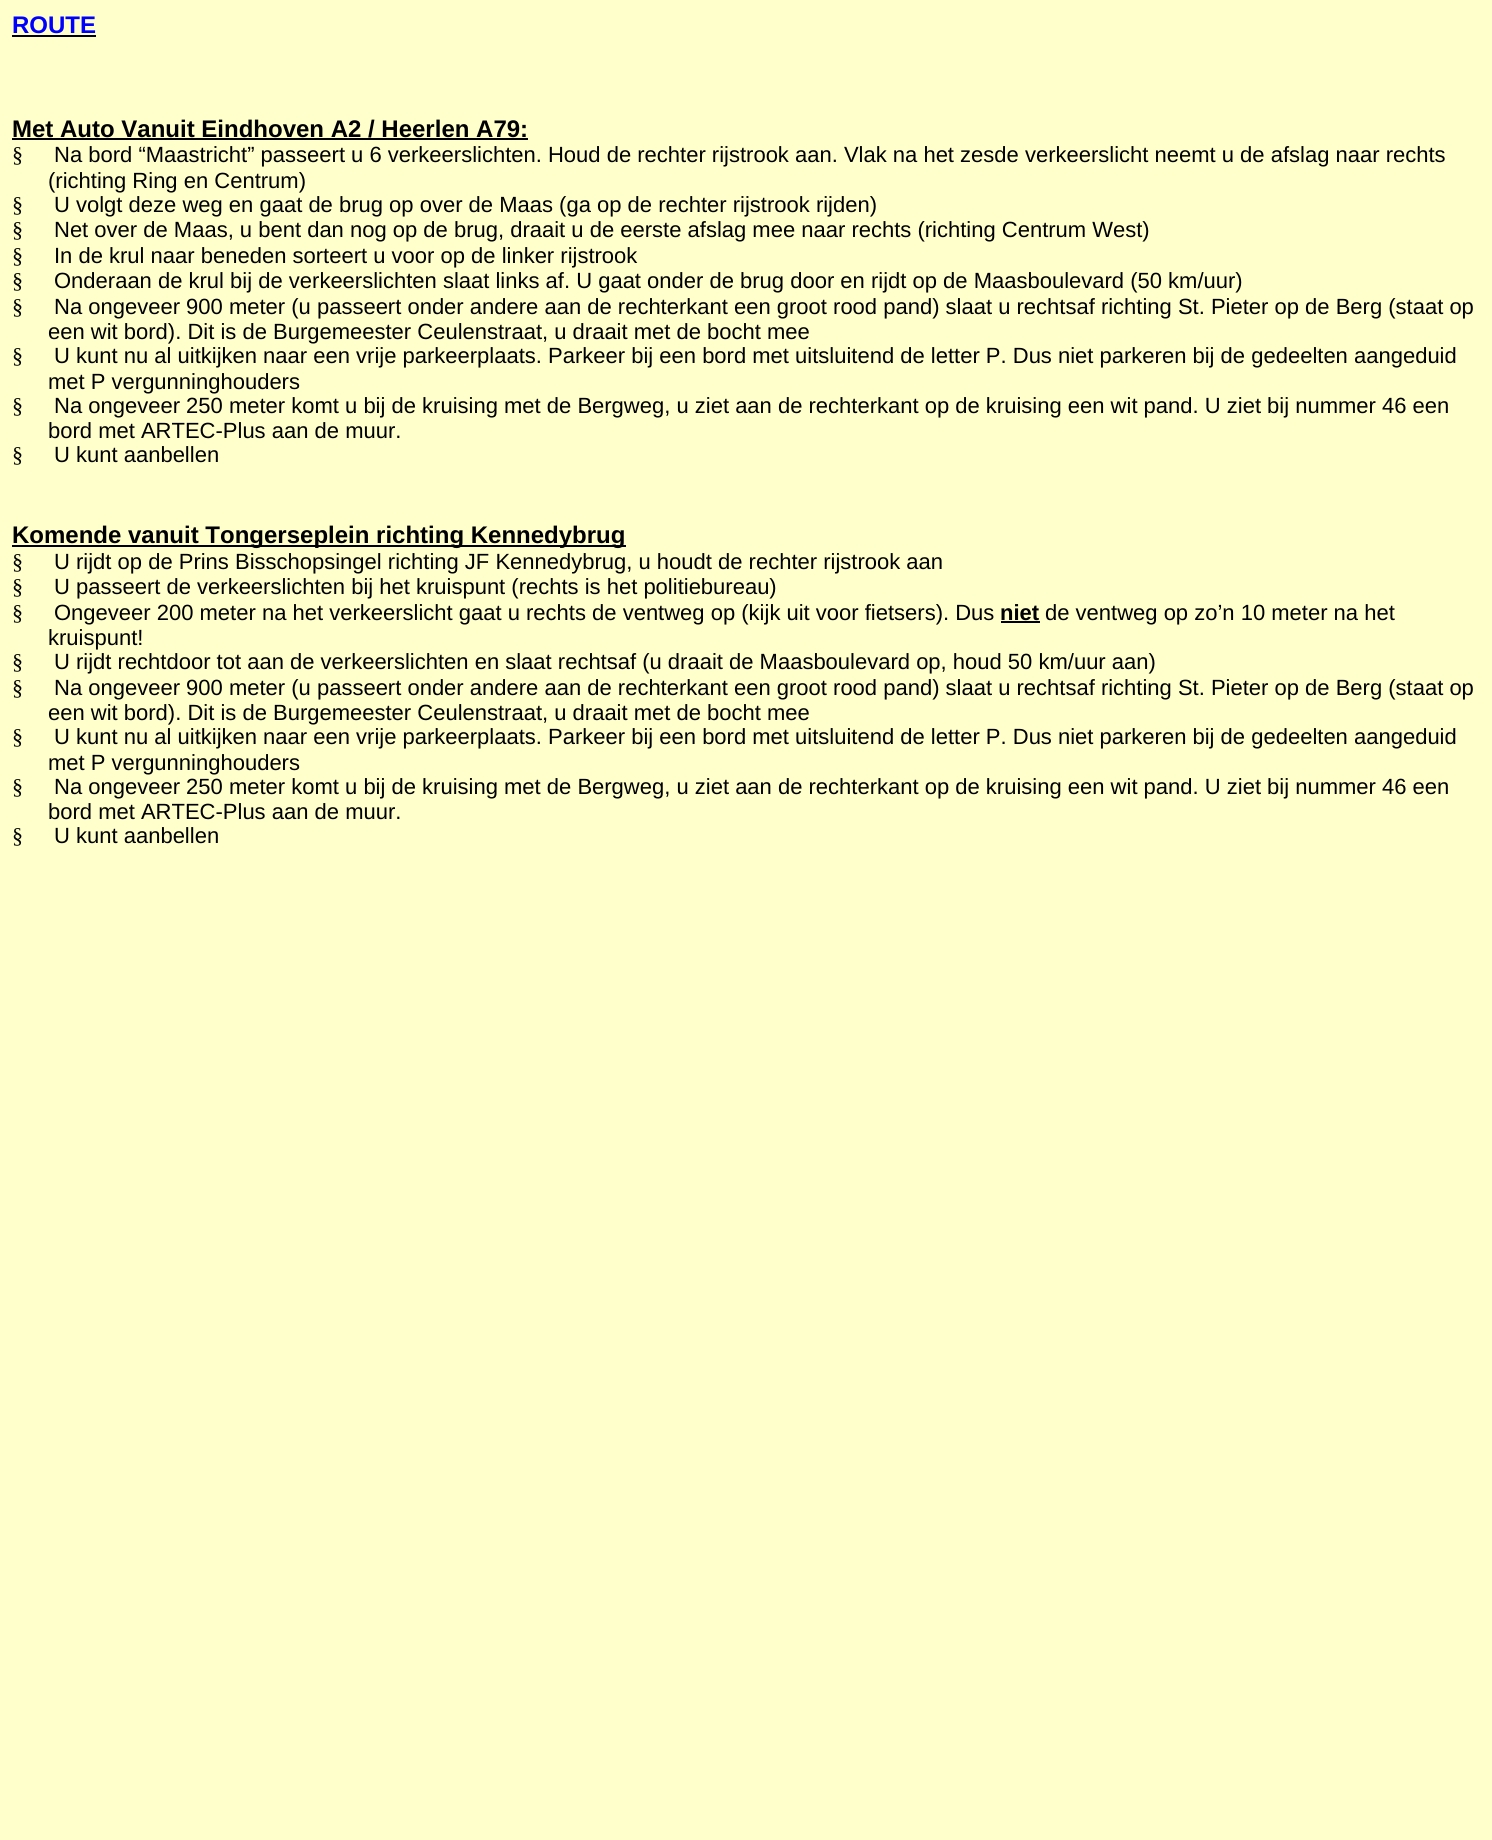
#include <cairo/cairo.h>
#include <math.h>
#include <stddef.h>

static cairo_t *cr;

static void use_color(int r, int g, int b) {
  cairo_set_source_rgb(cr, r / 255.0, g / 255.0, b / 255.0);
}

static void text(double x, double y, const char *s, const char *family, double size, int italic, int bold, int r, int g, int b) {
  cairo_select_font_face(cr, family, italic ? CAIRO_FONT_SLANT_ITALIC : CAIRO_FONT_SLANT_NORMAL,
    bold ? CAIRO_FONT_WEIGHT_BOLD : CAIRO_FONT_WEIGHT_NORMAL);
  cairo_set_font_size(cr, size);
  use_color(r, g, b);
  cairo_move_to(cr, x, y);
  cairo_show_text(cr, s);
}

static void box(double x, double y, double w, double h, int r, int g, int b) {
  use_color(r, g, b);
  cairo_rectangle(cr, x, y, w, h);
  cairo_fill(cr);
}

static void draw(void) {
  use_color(255, 255, 204);
  cairo_paint(cr);
  box(12, 35, 84, 2, 0, 0, 0);
  box(12, 138, 516, 2, 0, 0, 0);
  box(12, 545, 614, 2, 0, 0, 0);
  box(1001, 621, 39, 2, 0, 0, 0);
  text(12, 33, "ROUTE", "Liberation Sans", 24, 0, 1, 0, 0, 255);
  text(12, 137, "Met Auto Vanuit Eindhoven A2 / Heerlen A79:", "Liberation Sans", 24, 0, 1, 0, 0, 0);
  text(12, 162, "§", "Liberation Serif", 22, 0, 0, 0, 0, 0);
  text(54, 162, "Na bord “Maastricht” passeert u 6 verkeerslichten. Houd de rechter rijstrook aan. Vlak na het zesde verkeerslicht neemt u de afslag naar rechts", "Liberation Sans", 22, 0, 0, 0, 0, 0);
  text(48, 188, "(richting Ring en Centrum)", "Liberation Sans", 22, 0, 0, 0, 0, 0);
  text(12, 212, "§", "Liberation Serif", 22, 0, 0, 0, 0, 0);
  text(54, 212, "U volgt deze weg en gaat de brug op over de Maas (ga op de rechter rijstrook rijden)", "Liberation Sans", 22, 0, 0, 0, 0, 0);
  text(12, 237, "§", "Liberation Serif", 22, 0, 0, 0, 0, 0);
  text(54, 237, "Net over de Maas, u bent dan nog op de brug, draait u de eerste afslag mee naar rechts (richting Centrum West)", "Liberation Sans", 22, 0, 0, 0, 0, 0);
  text(12, 263, "§", "Liberation Serif", 22, 0, 0, 0, 0, 0);
  text(54, 263, "In de krul naar beneden sorteert u voor op de linker rijstrook", "Liberation Sans", 22, 0, 0, 0, 0, 0);
  text(12, 288, "§", "Liberation Serif", 22, 0, 0, 0, 0, 0);
  text(54, 288, "Onderaan de krul bij de verkeerslichten slaat links af. U gaat onder de brug door en rijdt op de Maasboulevard (50 km/uur)", "Liberation Sans", 22, 0, 0, 0, 0, 0);
  text(12, 314, "§", "Liberation Serif", 22, 0, 0, 0, 0, 0);
  text(54, 314, "Na ongeveer 900 meter (u passeert onder andere aan de rechterkant een groot rood pand) slaat u rechtsaf richting St. Pieter op de Berg (staat op", "Liberation Sans", 22, 0, 0, 0, 0, 0);
  text(48, 339, "een wit bord). Dit is de Burgemeester Ceulenstraat, u draait met de bocht mee", "Liberation Sans", 22, 0, 0, 0, 0, 0);
  text(12, 363, "§", "Liberation Serif", 22, 0, 0, 0, 0, 0);
  text(54, 363, "U kunt nu al uitkijken naar een vrije parkeerplaats. Parkeer bij een bord met uitsluitend de letter P. Dus niet parkeren bij de gedeelten aangeduid", "Liberation Sans", 22, 0, 0, 0, 0, 0);
  text(48, 389, "met P vergunninghouders", "Liberation Sans", 22, 0, 0, 0, 0, 0);
  text(12, 413, "§", "Liberation Serif", 22, 0, 0, 0, 0, 0);
  text(54, 413, "Na ongeveer 250 meter komt u bij de kruising met de Bergweg, u ziet aan de rechterkant op de kruising een wit pand. U ziet bij nummer 46 een", "Liberation Sans", 22, 0, 0, 0, 0, 0);
  text(48, 438, "bord met ARTEC-Plus aan de muur.", "Liberation Sans", 22, 0, 0, 0, 0, 0);
  text(12, 462, "§", "Liberation Serif", 22, 0, 0, 0, 0, 0);
  text(54, 462, "U kunt aanbellen", "Liberation Sans", 22, 0, 0, 0, 0, 0);
  text(12, 543, "Komende vanuit Tongerseplein richting Kennedybrug", "Liberation Sans", 24, 0, 1, 0, 0, 0);
  text(12, 569, "§", "Liberation Serif", 22, 0, 0, 0, 0, 0);
  text(54, 569, "U rijdt op de Prins Bisschopsingel richting JF Kennedybrug, u houdt de rechter rijstrook aan", "Liberation Sans", 22, 0, 0, 0, 0, 0);
  text(12, 594, "§", "Liberation Serif", 22, 0, 0, 0, 0, 0);
  text(54, 594, "U passeert de verkeerslichten bij het kruispunt (rechts is het politiebureau)", "Liberation Sans", 22, 0, 0, 0, 0, 0);
  text(12, 620, "§", "Liberation Serif", 22, 0, 0, 0, 0, 0);
  text(54, 620, "Ongeveer 200 meter na het verkeerslicht gaat u rechts de ventweg op (kijk uit voor fietsers). Dus", "Liberation Sans", 22, 0, 0, 0, 0, 0);
  text(1000, 620, "niet", "Liberation Sans", 22, 0, 1, 0, 0, 0);
  text(1045, 620, "de ventweg op zo’n 10 meter na het", "Liberation Sans", 22, 0, 0, 0, 0, 0);
  text(48, 645, "kruispunt!", "Liberation Sans", 22, 0, 0, 0, 0, 0);
  text(12, 669, "§", "Liberation Serif", 22, 0, 0, 0, 0, 0);
  text(54, 669, "U rijdt rechtdoor tot aan de verkeerslichten en slaat rechtsaf (u draait de Maasboulevard op, houd 50 km/uur aan)", "Liberation Sans", 22, 0, 0, 0, 0, 0);
  text(12, 695, "§", "Liberation Serif", 22, 0, 0, 0, 0, 0);
  text(54, 695, "Na ongeveer 900 meter (u passeert onder andere aan de rechterkant een groot rood pand) slaat u rechtsaf richting St. Pieter op de Berg (staat op", "Liberation Sans", 22, 0, 0, 0, 0, 0);
  text(48, 720, "een wit bord). Dit is de Burgemeester Ceulenstraat, u draait met de bocht mee", "Liberation Sans", 22, 0, 0, 0, 0, 0);
  text(12, 744, "§", "Liberation Serif", 22, 0, 0, 0, 0, 0);
  text(54, 744, "U kunt nu al uitkijken naar een vrije parkeerplaats. Parkeer bij een bord met uitsluitend de letter P. Dus niet parkeren bij de gedeelten aangeduid", "Liberation Sans", 22, 0, 0, 0, 0, 0);
  text(48, 770, "met P vergunninghouders", "Liberation Sans", 22, 0, 0, 0, 0, 0);
  text(12, 794, "§", "Liberation Serif", 22, 0, 0, 0, 0, 0);
  text(54, 794, "Na ongeveer 250 meter komt u bij de kruising met de Bergweg, u ziet aan de rechterkant op de kruising een wit pand. U ziet bij nummer 46 een", "Liberation Sans", 22, 0, 0, 0, 0, 0);
  text(48, 819, "bord met ARTEC-Plus aan de muur.", "Liberation Sans", 22, 0, 0, 0, 0, 0);
  text(12, 843, "§", "Liberation Serif", 22, 0, 0, 0, 0, 0);
  text(54, 843, "U kunt aanbellen", "Liberation Sans", 22, 0, 0, 0, 0, 0);
}

int main(void) {
  cairo_surface_t *surface = cairo_image_surface_create(CAIRO_FORMAT_RGB24, 1492, 1840);
  cr = cairo_create(surface);
  cairo_font_options_t *options = cairo_font_options_create();
  cairo_font_options_set_hint_metrics(options, CAIRO_HINT_METRICS_OFF);
  cairo_font_options_set_hint_style(options, CAIRO_HINT_STYLE_NONE);
  cairo_set_font_options(cr, options);
  cairo_set_miter_limit(cr, 4);
  draw();
  cairo_surface_write_to_png(surface, "out.png");
  cairo_font_options_destroy(options);
  cairo_destroy(cr);
  cairo_surface_destroy(surface);
  return 0;
}
